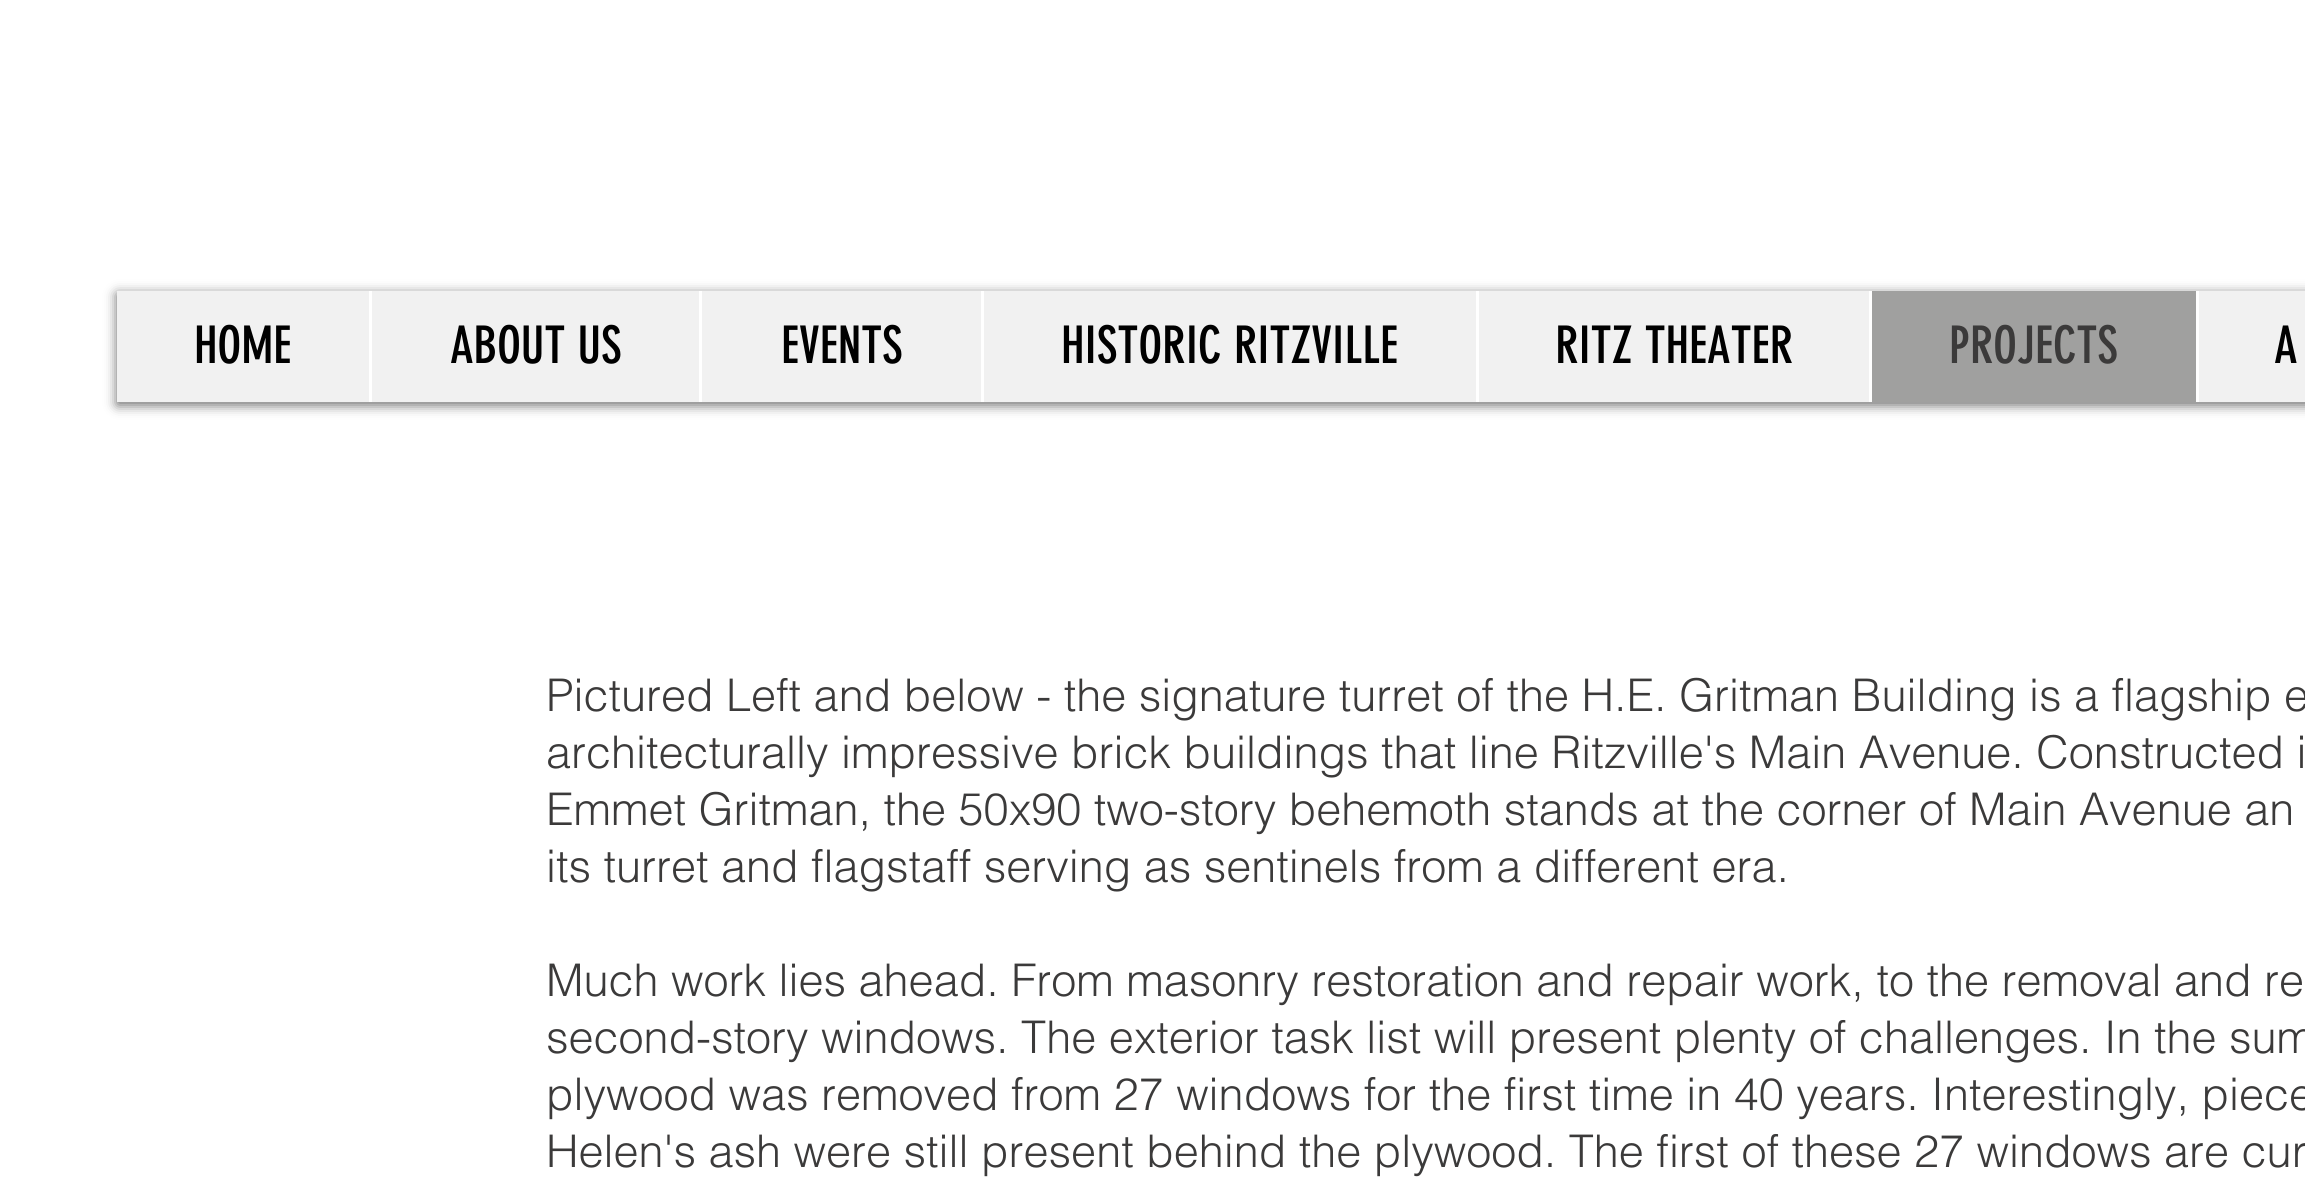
#include <cairo/cairo.h>
#include <math.h>
#include <stddef.h>

static cairo_t *cr;

static void use_color(int r, int g, int b) {
  cairo_set_source_rgb(cr, r / 255.0, g / 255.0, b / 255.0);
}

static void text(double x, double y, const char *s, const char *family, double size, int italic, int bold, int r, int g, int b) {
  cairo_select_font_face(cr, family, italic ? CAIRO_FONT_SLANT_ITALIC : CAIRO_FONT_SLANT_NORMAL,
    bold ? CAIRO_FONT_WEIGHT_BOLD : CAIRO_FONT_WEIGHT_NORMAL);
  cairo_set_font_size(cr, size);
  use_color(r, g, b);
  cairo_move_to(cr, x, y);
  cairo_show_text(cr, s);
}

static void box(double x, double y, double w, double h, int r, int g, int b) {
  use_color(r, g, b);
  cairo_rectangle(cr, x, y, w, h);
  cairo_fill(cr);
}

static void round_rect(double x, double y, double w, double h, double r) {
  cairo_new_sub_path(cr);
  cairo_arc(cr, x + w - r, y + h - r, r, 0, M_PI / 2);
  cairo_arc(cr, x + r, y + h - r, r, M_PI / 2, M_PI);
  cairo_arc(cr, x + r, y + r, r, M_PI, 1.5 * M_PI);
  cairo_arc(cr, x + w - r, y + r, r, 1.5 * M_PI, 2 * M_PI);
  cairo_close_path(cr);
}

static void shadow(double x, double y, double w, double h, double r, double blur, double alpha) {
  cairo_push_group_with_content(cr, CAIRO_CONTENT_ALPHA);
  cairo_set_operator(cr, CAIRO_OPERATOR_SOURCE);
  for (int i = 15; i >= -15 && fmin(w, h) + blur * i / 3 > 0; i -= 2) {
    double e = blur * i / 6;
    cairo_set_source_rgba(cr, 0, 0, 0, alpha * erfc((i - 1) / 8.5) / 2);
    round_rect(x - e, y - e, w + 2 * e, h + 2 * e, fmax(0, fmin(r + e + blur * .6, fmin(w, h) / 2 + e)));
    cairo_fill(cr);
  }
  cairo_pattern_t *soft = cairo_pop_group(cr);
  cairo_mask(cr, soft);
  cairo_pattern_destroy(soft);
}

static void draw(void) {
  use_color(255, 255, 255);
  cairo_paint(cr);
  use_color(0, 0, 0);
  shadow(117, 294, 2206, 111, 0, 6, 0.6);
  box(117, 291, 2188, 111, 241, 241, 241);
  box(369, 291, 3, 111, 255, 255, 255);
  box(699, 291, 3, 111, 255, 255, 255);
  box(981, 291, 3, 111, 255, 255, 255);
  box(1476, 291, 3, 111, 255, 255, 255);
  box(1872, 291, 324, 111, 160, 160, 159);
  box(1869, 291, 3, 111, 255, 255, 255);
  box(2196, 291, 3, 111, 255, 255, 255);
  text(194, 363, "HOME", "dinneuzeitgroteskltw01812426", 51, 0, 0, 0, 0, 0);
  text(450, 363, "ABOUT US", "dinneuzeitgroteskltw01812426", 51, 0, 0, 0, 0, 0);
  text(781, 363, "EVENTS", "dinneuzeitgroteskltw01812426", 51, 0, 0, 0, 0, 0);
  text(1061, 363, "HISTORIC RITZVILLE", "dinneuzeitgroteskltw01812426", 51, 0, 0, 0, 0, 0);
  text(1555, 363, "RITZ THEATER", "dinneuzeitgroteskltw01812426", 51, 0, 0, 0, 0, 0);
  text(1949, 363, "PROJECTS", "dinneuzeitgroteskltw01812426", 51, 0, 0, 59, 58, 58);
  text(2274, 363, "A", "dinneuzeitgroteskltw01812426", 51, 0, 0, 0, 0, 0);
  text(546, 711, "Pictured Left and below - the signature turret of the H.E. Gritman Building is a flagship e", "helvetica Light", 45, 0, 0, 59, 58, 58);
  text(546, 768, "architecturally impressive brick buildings that line Ritzville's Main Avenue. Constructed i", "helvetica Light", 45, 0, 0, 59, 58, 58);
  text(546, 825, "Emmet Gritman, the 50x90 two-story behemoth stands at the corner of Main Avenue an", "helvetica Light", 45, 0, 0, 59, 58, 58);
  text(546, 882, "its turret and flagstaff serving as sentinels from a different era.", "helvetica Light", 45, 0, 0, 59, 58, 58);
  text(546, 996, "Much work lies ahead. From masonry restoration and repair work, to the removal and re", "helvetica Light", 45, 0, 0, 59, 58, 58);
  text(546, 1053, "second-story windows. The exterior task list will present plenty of challenges. In the sum", "helvetica Light", 45, 0, 0, 59, 58, 58);
  text(546, 1110, "plywood was removed from 27 windows for the first time in 40 years. Interestingly, piece", "helvetica Light", 45, 0, 0, 59, 58, 58);
  text(546, 1167, "Helen's ash were still present behind the plywood. The first of these 27 windows are cur", "helvetica Light", 45, 0, 0, 59, 58, 58);
}

int main(void) {
  cairo_surface_t *surface = cairo_image_surface_create(CAIRO_FORMAT_RGB24, 2305, 1203);
  cr = cairo_create(surface);
  cairo_font_options_t *options = cairo_font_options_create();
  cairo_font_options_set_hint_metrics(options, CAIRO_HINT_METRICS_OFF);
  cairo_font_options_set_hint_style(options, CAIRO_HINT_STYLE_NONE);
  cairo_set_font_options(cr, options);
  cairo_set_miter_limit(cr, 4);
  draw();
  cairo_surface_write_to_png(surface, "out.png");
  cairo_font_options_destroy(options);
  cairo_destroy(cr);
  cairo_surface_destroy(surface);
  return 0;
}
